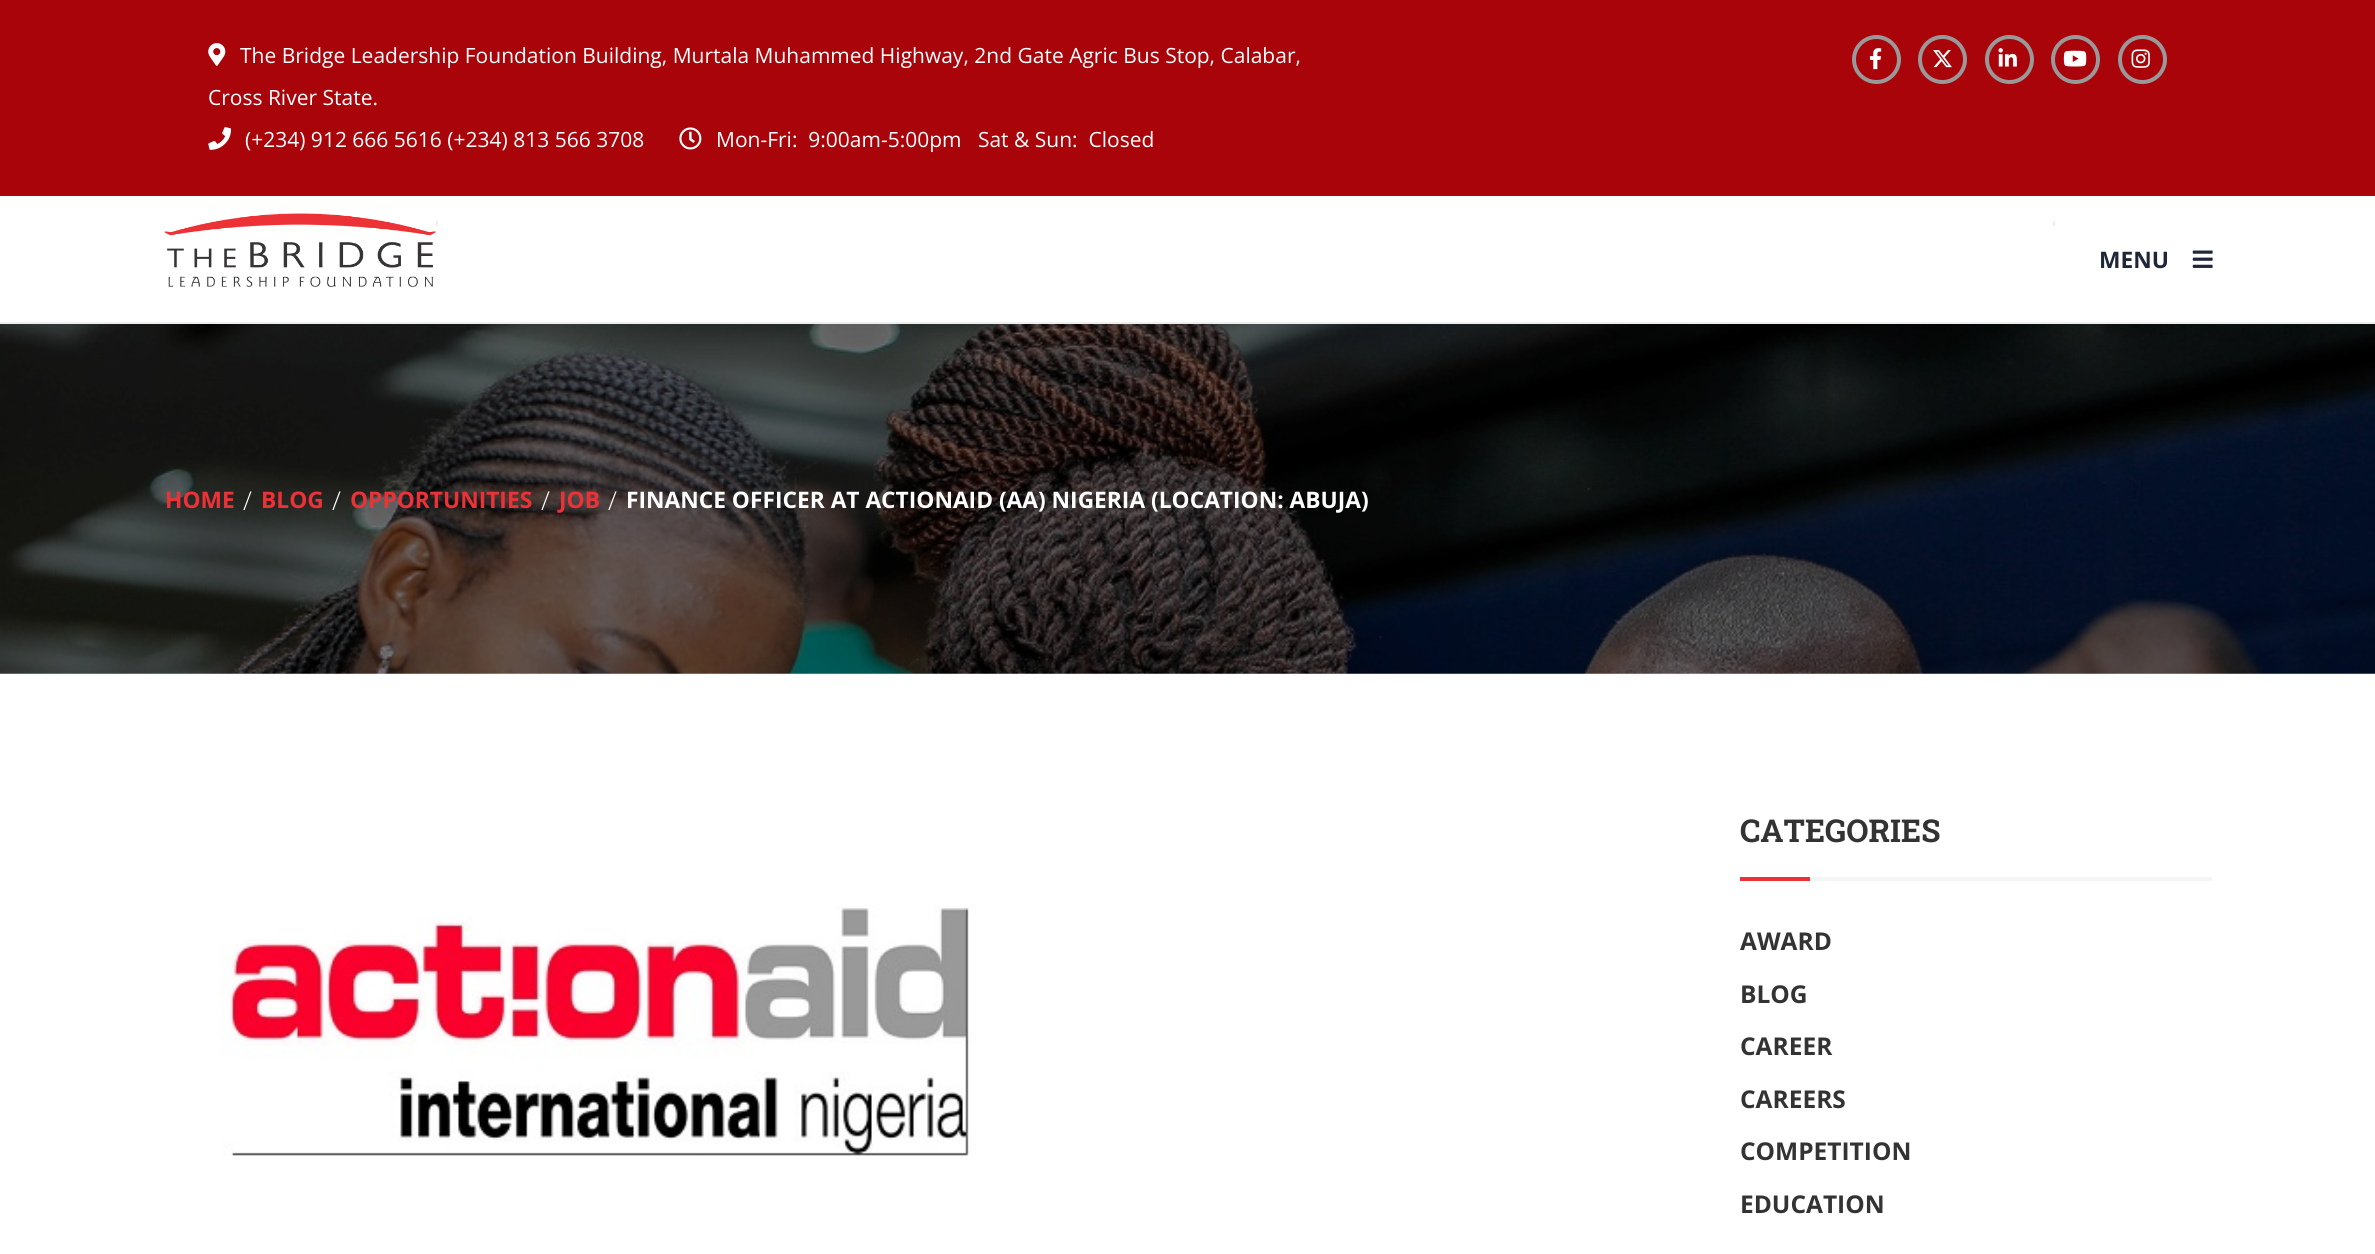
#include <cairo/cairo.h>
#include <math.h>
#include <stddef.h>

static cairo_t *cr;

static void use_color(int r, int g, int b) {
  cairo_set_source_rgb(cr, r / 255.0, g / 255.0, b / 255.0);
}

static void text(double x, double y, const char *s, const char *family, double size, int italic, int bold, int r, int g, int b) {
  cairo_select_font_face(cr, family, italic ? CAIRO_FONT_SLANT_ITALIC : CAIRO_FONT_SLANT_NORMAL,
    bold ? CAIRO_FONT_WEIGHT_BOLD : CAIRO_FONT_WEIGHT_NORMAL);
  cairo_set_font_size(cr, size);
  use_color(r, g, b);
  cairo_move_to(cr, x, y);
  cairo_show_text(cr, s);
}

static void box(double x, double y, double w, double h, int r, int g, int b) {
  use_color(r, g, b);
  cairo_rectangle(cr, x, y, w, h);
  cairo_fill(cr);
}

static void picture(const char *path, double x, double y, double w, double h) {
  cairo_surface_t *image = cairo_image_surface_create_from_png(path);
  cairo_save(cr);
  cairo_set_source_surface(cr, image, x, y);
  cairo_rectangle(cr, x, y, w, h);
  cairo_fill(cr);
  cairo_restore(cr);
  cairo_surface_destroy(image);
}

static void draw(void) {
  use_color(255, 255, 255);
  cairo_paint(cr);
  box(0, 0, 2375, 196, 169, 4, 9);
  picture("img_01.png", 208, 43, 18, 23);
  picture("img_02.png", 208, 127, 24, 23);
  picture("img_03.png", 679, 127, 23, 23);
  cairo_arc(cr, 1876.5, 59.5, 22.5, 0, 2 * M_PI);
  use_color(153, 153, 153);
  cairo_set_line_width(cr, 4);
  cairo_stroke(cr);
  picture("img_04.png", 1869, 48, 13, 22);
  cairo_arc(cr, 1942.5, 59.5, 22.5, 0, 2 * M_PI);
  cairo_stroke(cr);
  picture("img_05.png", 1933, 50, 19, 18);
  cairo_arc(cr, 2009.5, 59.5, 22.5, 0, 2 * M_PI);
  cairo_stroke(cr);
  picture("img_06.png", 1998, 48, 19, 19);
  cairo_arc(cr, 2075.5, 59.5, 22.5, 0, 2 * M_PI);
  cairo_stroke(cr);
  picture("img_07.png", 2063, 50, 24, 17);
  cairo_arc(cr, 2142.5, 59.5, 22.5, 0, 2 * M_PI);
  cairo_stroke(cr);
  picture("img_08.png", 2131, 49, 19, 19);
  box(0, 322, 2375, 2, 238, 238, 238);
  picture("img_09.png", 164, 213, 272, 74);
  box(436, 221, 2, 5, 238, 238, 238);
  box(2053, 221, 2, 5, 238, 238, 238);
  picture("img_10.png", 2192, 250, 21, 18);
  picture("img_11.png", 0, 324, 2375, 350);
  picture("img_12.png", 220, 905, 756, 251);
  box(1740, 877, 70, 4, 237, 50, 55);
  box(1810, 877, 402, 4, 245, 245, 245);
  text(240, 63, "The Bridge Leadership Foundation Building, Murtala Muhammed Highway, 2nd Gate Agric Bus Stop, Calabar,", "Open Sans", 21, 0, 0, 255, 255, 255);
  text(208, 105, "Cross River State.", "Open Sans", 21, 0, 0, 255, 255, 255);
  text(245, 147, "(+234) 912 666 5616 (+234) 813 566 3708", "Open Sans", 21, 0, 0, 255, 255, 255);
  text(716, 147, "Mon-Fri:  9:00am-5:00pm   Sat & Sun:  Closed", "Open Sans", 21, 0, 0, 255, 255, 255);
  text(2099, 268, "MENU", "Open Sans", 22.75, 0, 1, 31, 38, 55);
  text(165, 508, "HOME", "Open Sans", 22.75, 0, 1, 237, 50, 55);
  text(243, 510, "/", "Open Sans Light", 26, 0, 0, 255, 255, 255);
  text(261, 508, "BLOG", "Open Sans", 22.75, 0, 1, 237, 50, 55);
  text(332, 510, "/", "Open Sans Light", 26, 0, 0, 255, 255, 255);
  text(350, 508, "OPPORTUNITIES", "Open Sans", 22.75, 0, 1, 237, 50, 55);
  text(541, 510, "/", "Open Sans Light", 26, 0, 0, 255, 255, 255);
  text(559, 508, "JOB", "Open Sans", 22.75, 0, 1, 237, 50, 55);
  text(608, 510, "/", "Open Sans Light", 26, 0, 0, 255, 255, 255);
  text(626, 508, "FINANCE OFFICER AT ACTIONAID (AA) NIGERIA (LOCATION: ABUJA)", "Open Sans", 22.75, 0, 1, 255, 255, 255);
  text(1740, 842, "CATEGORIES", "Roboto Slab", 31.5, 0, 1, 51, 51, 51);
  text(1740, 950, "AWARD", "Open Sans", 24.5, 0, 1, 51, 51, 51);
  text(1740, 1003, "BLOG", "Open Sans", 24.5, 0, 1, 51, 51, 51);
  text(1740, 1055, "CAREER", "Open Sans", 24.5, 0, 1, 51, 51, 51);
  text(1740, 1108, "CAREERS", "Open Sans", 24.5, 0, 1, 51, 51, 51);
  text(1740, 1160, "COMPETITION", "Open Sans", 24.5, 0, 1, 51, 51, 51);
  text(1740, 1213, "EDUCATION", "Open Sans", 24.5, 0, 1, 51, 51, 51);
}

int main(void) {
  cairo_surface_t *surface = cairo_image_surface_create(CAIRO_FORMAT_RGB24, 2375, 1254);
  cr = cairo_create(surface);
  cairo_font_options_t *options = cairo_font_options_create();
  cairo_font_options_set_hint_metrics(options, CAIRO_HINT_METRICS_OFF);
  cairo_font_options_set_hint_style(options, CAIRO_HINT_STYLE_NONE);
  cairo_set_font_options(cr, options);
  cairo_set_miter_limit(cr, 4);
  draw();
  cairo_surface_write_to_png(surface, "out.png");
  cairo_font_options_destroy(options);
  cairo_destroy(cr);
  cairo_surface_destroy(surface);
  return 0;
}
